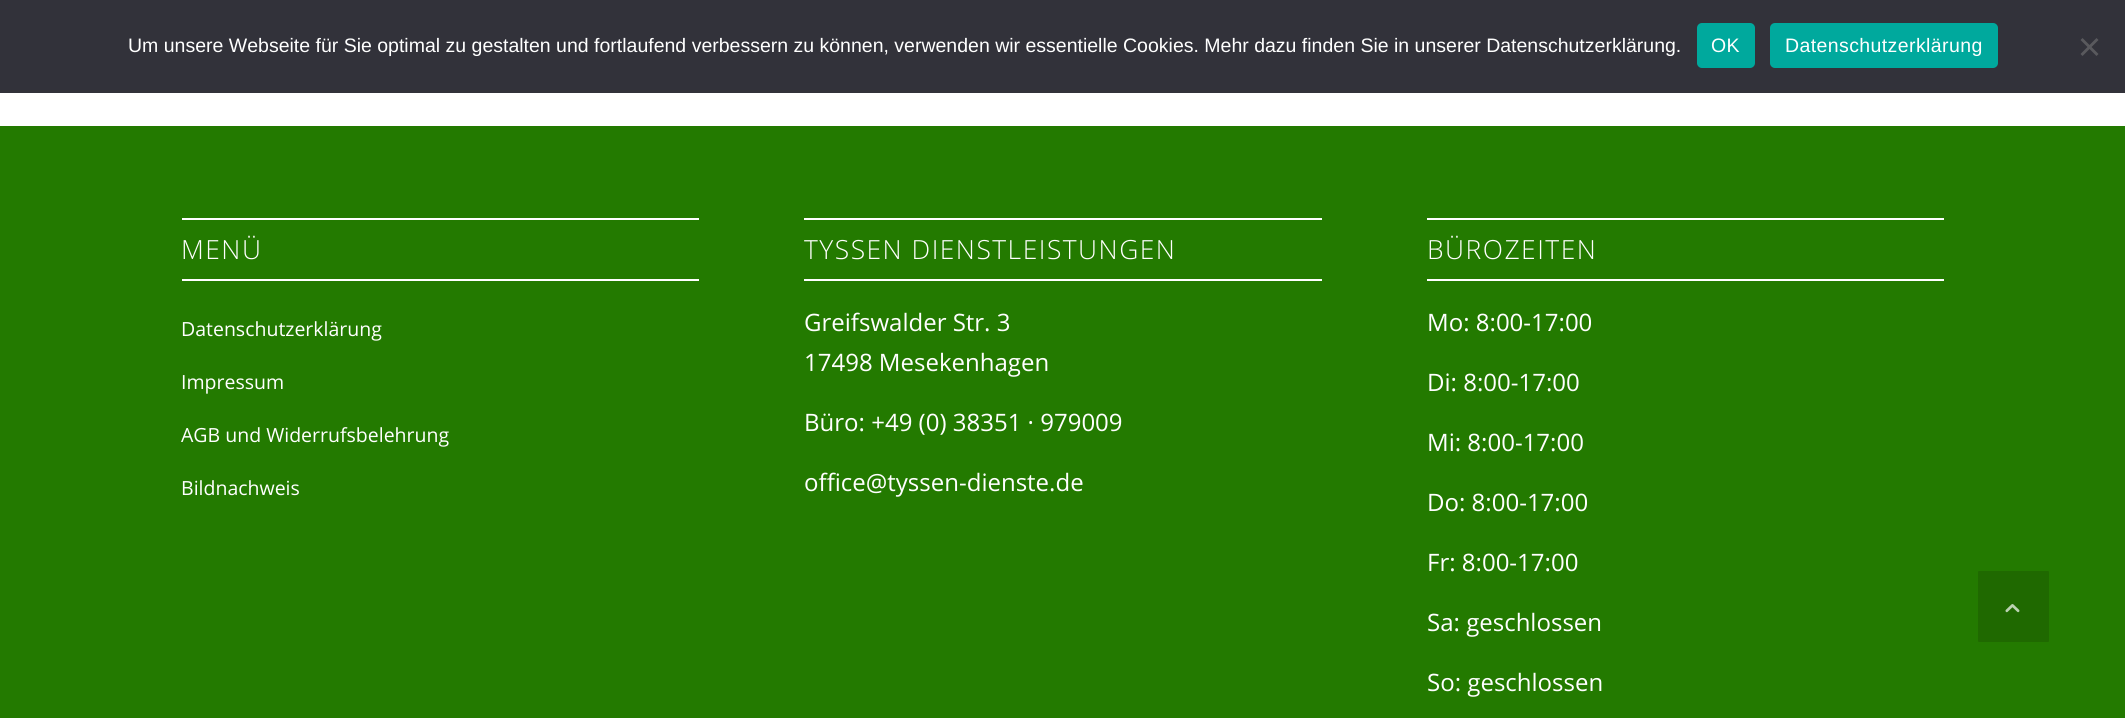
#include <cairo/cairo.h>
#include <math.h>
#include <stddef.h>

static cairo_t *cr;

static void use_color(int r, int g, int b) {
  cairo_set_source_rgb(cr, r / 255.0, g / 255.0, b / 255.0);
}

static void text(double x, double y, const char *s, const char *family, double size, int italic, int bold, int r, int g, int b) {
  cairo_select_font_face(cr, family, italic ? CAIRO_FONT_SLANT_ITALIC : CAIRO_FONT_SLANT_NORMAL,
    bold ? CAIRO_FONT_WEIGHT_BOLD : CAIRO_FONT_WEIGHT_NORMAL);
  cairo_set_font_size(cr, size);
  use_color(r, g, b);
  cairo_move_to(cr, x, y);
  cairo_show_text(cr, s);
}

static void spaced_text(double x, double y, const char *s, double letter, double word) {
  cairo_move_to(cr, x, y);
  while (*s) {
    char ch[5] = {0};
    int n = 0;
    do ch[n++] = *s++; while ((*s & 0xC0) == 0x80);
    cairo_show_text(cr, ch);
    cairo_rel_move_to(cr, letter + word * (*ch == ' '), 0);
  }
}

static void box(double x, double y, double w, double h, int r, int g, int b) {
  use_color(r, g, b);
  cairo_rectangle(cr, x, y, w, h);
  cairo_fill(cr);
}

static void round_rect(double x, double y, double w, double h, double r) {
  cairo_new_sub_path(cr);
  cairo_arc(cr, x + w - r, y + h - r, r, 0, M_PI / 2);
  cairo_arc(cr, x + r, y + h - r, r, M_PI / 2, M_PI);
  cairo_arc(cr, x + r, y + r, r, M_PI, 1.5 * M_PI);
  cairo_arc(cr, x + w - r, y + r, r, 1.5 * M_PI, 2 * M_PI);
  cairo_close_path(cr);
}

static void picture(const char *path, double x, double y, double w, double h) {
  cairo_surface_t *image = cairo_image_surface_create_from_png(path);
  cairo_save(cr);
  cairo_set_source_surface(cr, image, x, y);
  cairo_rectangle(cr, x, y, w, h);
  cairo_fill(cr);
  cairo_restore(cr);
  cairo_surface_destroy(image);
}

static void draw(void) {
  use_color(255, 255, 255);
  cairo_paint(cr);
  box(0, 0, 2125, 93, 50, 50, 58);
  use_color(0, 169, 157);
  round_rect(1697, 23, 58, 45, 5);
  cairo_fill(cr);
  round_rect(1770, 23, 228, 45, 5);
  cairo_fill(cr);
  use_color(89, 89, 93);
  cairo_new_path(cr);
  cairo_move_to(cr, 2096.5, 38);
  cairo_line_to(cr, 2098.5, 40);
  cairo_line_to(cr, 2082.5, 56);
  cairo_line_to(cr, 2080.5, 54);
  cairo_close_path(cr);
  cairo_fill(cr);
  cairo_new_path(cr);
  cairo_move_to(cr, 2080.5, 40);
  cairo_line_to(cr, 2082.5, 38);
  cairo_line_to(cr, 2098.5, 54);
  cairo_line_to(cr, 2096.5, 56);
  cairo_close_path(cr);
  cairo_fill(cr);
  box(0, 126, 2125, 592, 35, 122, 0);
  box(182, 218, 517, 2, 255, 255, 255);
  box(182, 279, 517, 2, 255, 255, 255);
  box(804, 218, 518, 2, 255, 255, 255);
  box(804, 279, 518, 2, 255, 255, 255);
  box(1427, 218, 517, 2, 255, 255, 255);
  box(1427, 279, 517, 2, 255, 255, 255);
  use_color(31, 105, 0);
  round_rect(1977, 570, 73, 73, 2);
  cairo_fill_preserve(cr);
  use_color(35, 122, 0);
  cairo_stroke(cr);
  picture("img_01.png", 2005, 604, 15, 9);
  text(128, 52, "Um unsere Webseite für Sie optimal zu gestalten und fortlaufend verbessern zu können, verwenden wir essentielle Cookies. Mehr dazu finden Sie in unserer Datenschutzerklärung.", "Liberation Sans", 19.5, 0, 0, 255, 255, 255);
  spaced_text(1711, 52, "OK", 0.4, 0);
  spaced_text(1785, 52, "Datenschutzerklärung", 0.4, 0);
  cairo_select_font_face(cr, "Open Sans Light", CAIRO_FONT_SLANT_NORMAL, CAIRO_FONT_WEIGHT_NORMAL);
  cairo_set_font_size(cr, 26.4);
  spaced_text(181, 259, "MENÜ", 1.5, 0);
  text(181, 336, "Datenschutzerklärung", "Open Sans", 19.5, 0, 0, 255, 255, 255);
  text(181, 389, "Impressum", "Open Sans", 19.5, 0, 0, 255, 255, 255);
  text(181, 442, "AGB und Widerrufsbelehrung", "Open Sans", 19.5, 0, 0, 255, 255, 255);
  text(181, 495, "Bildnachweis", "Open Sans", 19.5, 0, 0, 255, 255, 255);
  cairo_select_font_face(cr, "Open Sans Light", CAIRO_FONT_SLANT_NORMAL, CAIRO_FONT_WEIGHT_NORMAL);
  cairo_set_font_size(cr, 26.4);
  spaced_text(804, 259, "TYSSEN DIENSTLEISTUNGEN", 1.5, 0);
  text(804, 331, "Greifswalder Str. 3", "Open Sans", 24, 0, 0, 255, 255, 255);
  text(804, 371, "17498 Mesekenhagen", "Open Sans", 24, 0, 0, 255, 255, 255);
  text(804, 431, "Büro: +49 (0) 38351 · 979009", "Open Sans", 24, 0, 0, 255, 255, 255);
  text(804, 491, "office@tyssen-dienste.de", "Open Sans", 24, 0, 0, 255, 255, 255);
  cairo_select_font_face(cr, "Open Sans Light", CAIRO_FONT_SLANT_NORMAL, CAIRO_FONT_WEIGHT_NORMAL);
  cairo_set_font_size(cr, 26.4);
  spaced_text(1427, 259, "BÜROZEITEN", 1.5, 0);
  text(1427, 331, "Mo: 8:00-17:00", "Open Sans", 24, 0, 0, 255, 255, 255);
  text(1427, 391, "Di: 8:00-17:00", "Open Sans", 24, 0, 0, 255, 255, 255);
  text(1427, 451, "Mi: 8:00-17:00", "Open Sans", 24, 0, 0, 255, 255, 255);
  text(1427, 511, "Do: 8:00-17:00", "Open Sans", 24, 0, 0, 255, 255, 255);
  text(1427, 571, "Fr: 8:00-17:00", "Open Sans", 24, 0, 0, 255, 255, 255);
  text(1427, 631, "Sa: geschlossen", "Open Sans", 24, 0, 0, 255, 255, 255);
  text(1427, 691, "So: geschlossen", "Open Sans", 24, 0, 0, 255, 255, 255);
}

int main(void) {
  cairo_surface_t *surface = cairo_image_surface_create(CAIRO_FORMAT_RGB24, 2125, 718);
  cr = cairo_create(surface);
  cairo_font_options_t *options = cairo_font_options_create();
  cairo_font_options_set_hint_metrics(options, CAIRO_HINT_METRICS_OFF);
  cairo_font_options_set_hint_style(options, CAIRO_HINT_STYLE_NONE);
  cairo_set_font_options(cr, options);
  cairo_set_miter_limit(cr, 4);
  draw();
  cairo_surface_write_to_png(surface, "out.png");
  cairo_font_options_destroy(options);
  cairo_destroy(cr);
  cairo_surface_destroy(surface);
  return 0;
}
